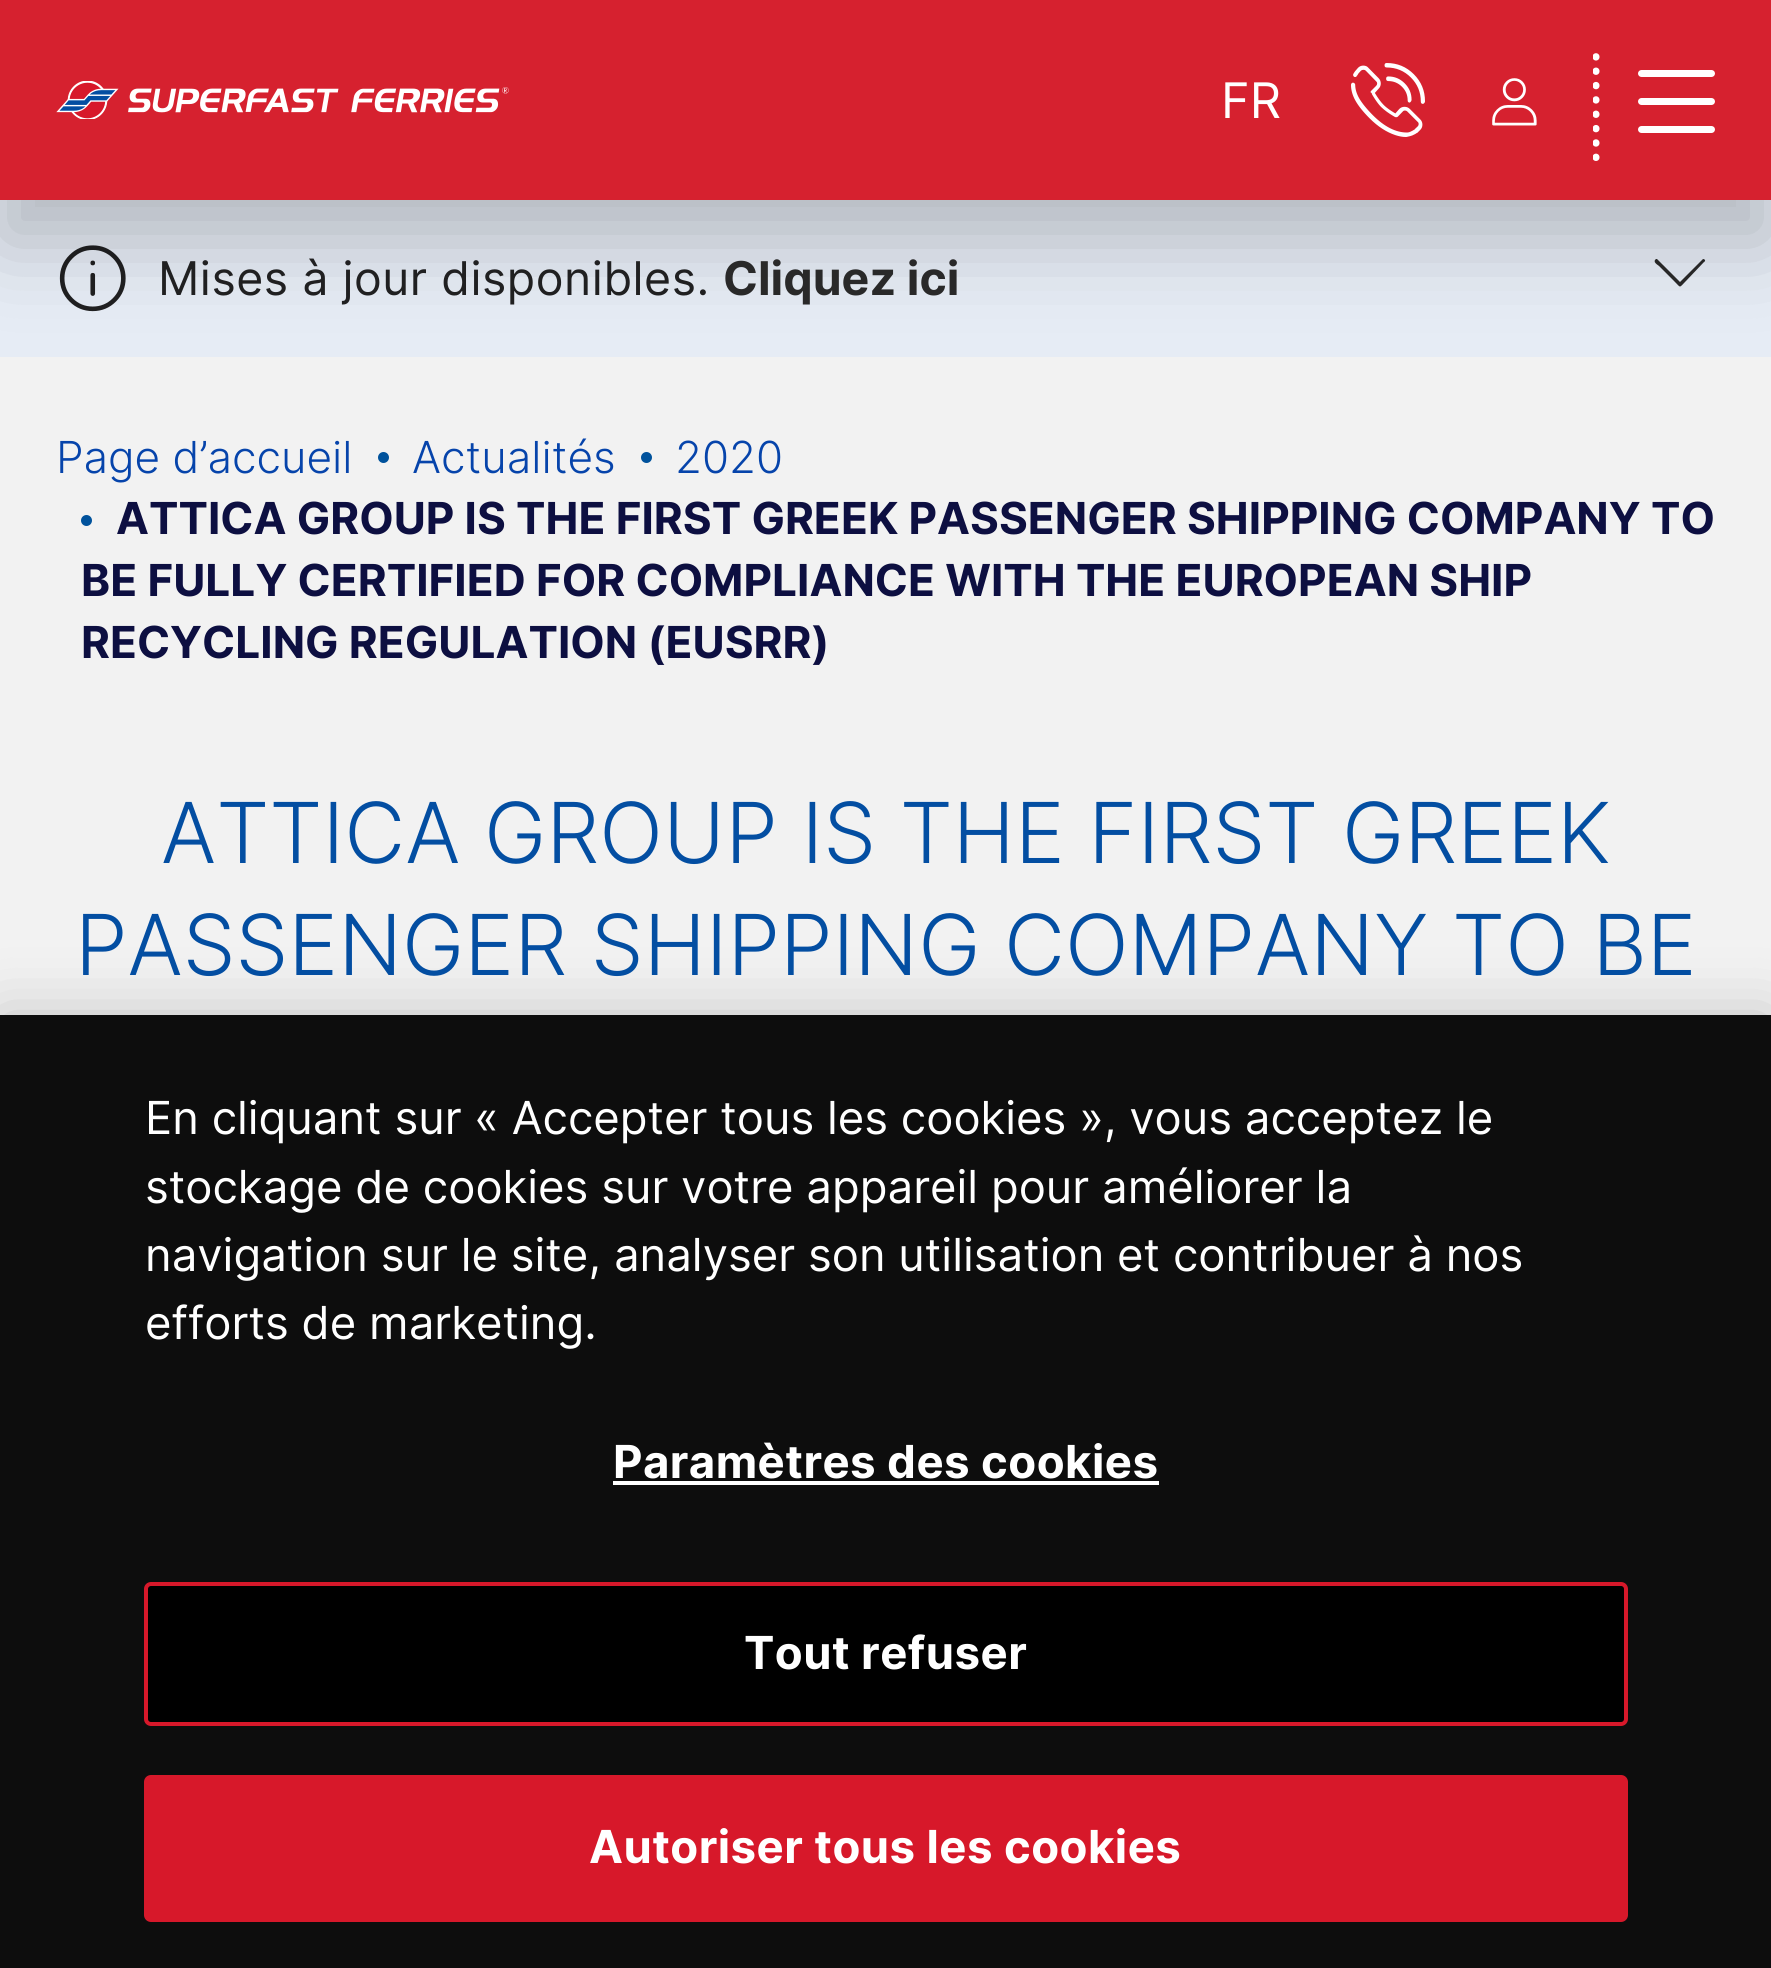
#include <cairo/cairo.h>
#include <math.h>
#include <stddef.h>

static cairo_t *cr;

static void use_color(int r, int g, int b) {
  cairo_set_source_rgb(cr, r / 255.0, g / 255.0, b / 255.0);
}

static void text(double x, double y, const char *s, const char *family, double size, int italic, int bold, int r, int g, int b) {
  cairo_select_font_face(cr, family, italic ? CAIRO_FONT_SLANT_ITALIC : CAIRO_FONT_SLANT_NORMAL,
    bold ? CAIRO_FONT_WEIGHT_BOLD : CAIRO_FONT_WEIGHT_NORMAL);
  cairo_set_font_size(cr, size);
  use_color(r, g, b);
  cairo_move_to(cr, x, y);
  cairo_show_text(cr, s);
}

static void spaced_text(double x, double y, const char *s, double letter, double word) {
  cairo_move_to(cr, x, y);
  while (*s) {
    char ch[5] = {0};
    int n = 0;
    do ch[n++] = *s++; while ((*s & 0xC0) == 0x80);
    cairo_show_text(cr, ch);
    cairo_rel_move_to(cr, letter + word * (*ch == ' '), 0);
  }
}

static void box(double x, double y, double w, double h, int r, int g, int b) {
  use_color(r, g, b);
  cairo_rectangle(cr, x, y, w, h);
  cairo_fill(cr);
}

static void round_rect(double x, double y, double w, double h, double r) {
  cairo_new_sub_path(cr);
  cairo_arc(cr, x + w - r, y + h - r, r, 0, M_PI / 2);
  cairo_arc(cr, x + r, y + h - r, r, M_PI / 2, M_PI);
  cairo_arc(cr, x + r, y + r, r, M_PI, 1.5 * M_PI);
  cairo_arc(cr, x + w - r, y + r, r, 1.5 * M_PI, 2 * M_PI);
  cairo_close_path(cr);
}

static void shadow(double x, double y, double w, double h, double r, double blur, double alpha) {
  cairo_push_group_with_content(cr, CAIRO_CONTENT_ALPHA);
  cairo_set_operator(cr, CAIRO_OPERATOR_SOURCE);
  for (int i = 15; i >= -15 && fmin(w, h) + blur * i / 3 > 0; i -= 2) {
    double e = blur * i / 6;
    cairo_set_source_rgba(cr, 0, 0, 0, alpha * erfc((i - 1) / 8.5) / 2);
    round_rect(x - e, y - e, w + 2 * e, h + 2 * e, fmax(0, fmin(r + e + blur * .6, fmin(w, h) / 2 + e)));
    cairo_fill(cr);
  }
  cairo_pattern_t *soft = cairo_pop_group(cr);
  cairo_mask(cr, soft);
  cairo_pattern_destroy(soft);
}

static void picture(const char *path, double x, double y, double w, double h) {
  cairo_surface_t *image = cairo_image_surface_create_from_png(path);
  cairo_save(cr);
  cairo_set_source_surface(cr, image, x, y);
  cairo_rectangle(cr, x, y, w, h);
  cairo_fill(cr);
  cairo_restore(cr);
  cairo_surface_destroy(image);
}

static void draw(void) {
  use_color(242, 242, 242);
  cairo_paint(cr);
  box(0, 0, 1771, 200, 0, 82, 156);
  box(0, 200, 1771, 157, 230, 236, 245);
  picture("img_03.png", 59, 245, 67, 67);
  use_color(41, 41, 41);
  cairo_new_path(cr);
  cairo_move_to(cr, 1704, 262);
  cairo_line_to(cr, 1685, 282);
  cairo_curve_to(cr, 1679, 288, 1681, 288, 1675, 282);
  cairo_line_to(cr, 1659, 266);
  cairo_curve_to(cr, 1658, 265, 1652, 262, 1656, 259);
  cairo_line_to(cr, 1657, 259);
  cairo_line_to(cr, 1680, 282);
  cairo_line_to(cr, 1703, 259);
  cairo_curve_to(cr, 1705, 259, 1706, 261, 1704, 262);
  cairo_close_path(cr);
  cairo_fill(cr);
  cairo_save(cr);
  cairo_set_fill_rule(cr, CAIRO_FILL_RULE_EVEN_ODD);
  cairo_new_path(cr);
  cairo_move_to(cr, 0, 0);
  cairo_line_to(cr, 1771, 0);
  cairo_line_to(cr, 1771, 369);
  cairo_line_to(cr, 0, 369);
  cairo_close_path(cr);
  cairo_move_to(cr, 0, 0);
  cairo_line_to(cr, 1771, 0);
  cairo_line_to(cr, 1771, 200);
  cairo_line_to(cr, 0, 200);
  cairo_close_path(cr);
  cairo_clip(cr);
  use_color(0, 0, 0);
  shadow(0, 42, 1771, 200, 0, 42, 0.22);
  cairo_restore(cr);
  cairo_set_source_rgba(cr, 0.929, 0.11, 0.141, 0.9);
  cairo_rectangle(cr, 0, 0, 1771, 200);
  cairo_fill(cr);
  picture("img_01.png", 56, 81, 453, 38);
  picture("img_02.png", 1492, 78, 45, 48);
  cairo_save(cr);
  cairo_rectangle(cr, 1593, 42, 7, 119);
  cairo_clip(cr);
  cairo_new_path(cr);
  cairo_move_to(cr, 1599.5, 161);
  cairo_line_to(cr, 1592.5, 161);
  cairo_line_to(cr, 1592.5, 42);
  cairo_line_to(cr, 1599.5, 42);
  cairo_close_path(cr);
  cairo_clip(cr);
  cairo_new_path(cr);
  cairo_move_to(cr, 1596, 157.5);
  cairo_line_to(cr, 1596, 45.5);
  use_color(255, 255, 255);
  cairo_set_line_width(cr, 7);
  cairo_set_line_cap(cr, CAIRO_LINE_CAP_ROUND);
  cairo_set_line_join(cr, CAIRO_LINE_JOIN_ROUND);
  cairo_set_dash(cr, (double[]){0.35, 14}, 2, 0);
  cairo_stroke(cr);
  cairo_restore(cr);
  use_color(255, 255, 255);
  round_rect(1638, 70, 77, 7, 3.5);
  cairo_fill(cr);
  round_rect(1638, 98, 77, 7, 3.5);
  cairo_fill(cr);
  round_rect(1638, 126, 77, 7, 3.5);
  cairo_fill(cr);
  use_color(0, 82, 156);
  cairo_arc(cr, 383.5, 457.5, 5.5, 0, 2 * M_PI);
  cairo_fill(cr);
  cairo_arc(cr, 646.5, 457.5, 5.5, 0, 2 * M_PI);
  cairo_fill(cr);
  cairo_arc(cr, 86.5, 520.5, 5.5, 0, 2 * M_PI);
  cairo_fill(cr);
  use_color(0, 0, 0);
  shadow(0, 1015, 1771, 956, 0, 31.5, 0.2);
  box(0, 1015, 1771, 953, 13, 13, 13);
  box(613, 1481, 546, 4, 255, 255, 255);
  use_color(0, 0, 0);
  round_rect(146, 1584, 1480, 140, 5);
  cairo_fill_preserve(cr);
  use_color(215, 24, 42);
  cairo_set_line_width(cr, 4);
  cairo_stroke(cr);
  round_rect(146, 1777, 1480, 143, 5);
  cairo_fill_preserve(cr);
  cairo_stroke(cr);
  text(1221, 118, "FR", "Inter", 49, 0, 0, 255, 255, 255);
  text(1351, 137, "9", "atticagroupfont", 74, 0, 0, 255, 255, 255);
  cairo_select_font_face(cr, "Inter", CAIRO_FONT_SLANT_NORMAL, CAIRO_FONT_WEIGHT_NORMAL);
  cairo_set_font_size(cr, 46.5);
  use_color(32, 32, 33);
  spaced_text(158, 295, "Mises à jour disponibles.", 0.5, 0);
  text(723, 295, "Cliquez ici", "Inter", 46.5, 0, 1, 41, 41, 41);
  text(56, 473, "Page d’accueil", "Inter Light", 44.1, 0, 0, 6, 68, 171);
  text(412, 473, "Actualités", "Inter Light", 44.1, 0, 0, 6, 68, 171);
  text(675, 473, "2020", "Inter Light", 44.1, 0, 0, 6, 68, 171);
  text(116, 534, "ATTICA GROUP IS THE FIRST GREEK PASSENGER SHIPPING COMPANY TO", "Inter", 44.1, 0, 1, 13, 15, 65);
  text(81, 596, "BE FULLY CERTIFIED FOR COMPLIANCE WITH THE EUROPEAN SHIP", "Inter", 44.1, 0, 1, 13, 15, 65);
  text(81, 658, "RECYCLING REGULATION (EUSRR)", "Inter", 44.1, 0, 1, 13, 15, 65);
  text(161, 863, "ATTICA GROUP IS THE FIRST GREEK", "Inter Light", 84, 0, 0, 3, 78, 162);
  text(75, 975, "PASSENGER SHIPPING COMPANY TO BE", "Inter Light", 84, 0, 0, 3, 78, 162);
  text(145, 1134, "En cliquant sur « Accepter tous les cookies », vous acceptez le", "Inter", 45.5, 0, 0, 255, 255, 255);
  text(145, 1203, "stockage de cookies sur votre appareil pour améliorer la", "Inter", 45.5, 0, 0, 255, 255, 255);
  text(145, 1271, "navigation sur le site, analyser son utilisation et contribuer à nos", "Inter", 45.5, 0, 0, 255, 255, 255);
  text(145, 1339, "efforts de marketing.", "Inter", 45.5, 0, 0, 255, 255, 255);
  cairo_select_font_face(cr, "Inter", CAIRO_FONT_SLANT_NORMAL, CAIRO_FONT_WEIGHT_BOLD);
  spaced_text(613, 1478, "Paramètres des cookies", 0.45, 0);
  spaced_text(744, 1669, "Tout refuser", 0.45, 0);
  spaced_text(589, 1863, "Autoriser tous les cookies", 0.45, 0);
}

int main(void) {
  cairo_surface_t *surface = cairo_image_surface_create(CAIRO_FORMAT_RGB24, 1771, 1968);
  cr = cairo_create(surface);
  cairo_font_options_t *options = cairo_font_options_create();
  cairo_font_options_set_hint_metrics(options, CAIRO_HINT_METRICS_OFF);
  cairo_font_options_set_hint_style(options, CAIRO_HINT_STYLE_NONE);
  cairo_set_font_options(cr, options);
  cairo_set_miter_limit(cr, 4);
  draw();
  cairo_surface_write_to_png(surface, "out.png");
  cairo_font_options_destroy(options);
  cairo_destroy(cr);
  cairo_surface_destroy(surface);
  return 0;
}
